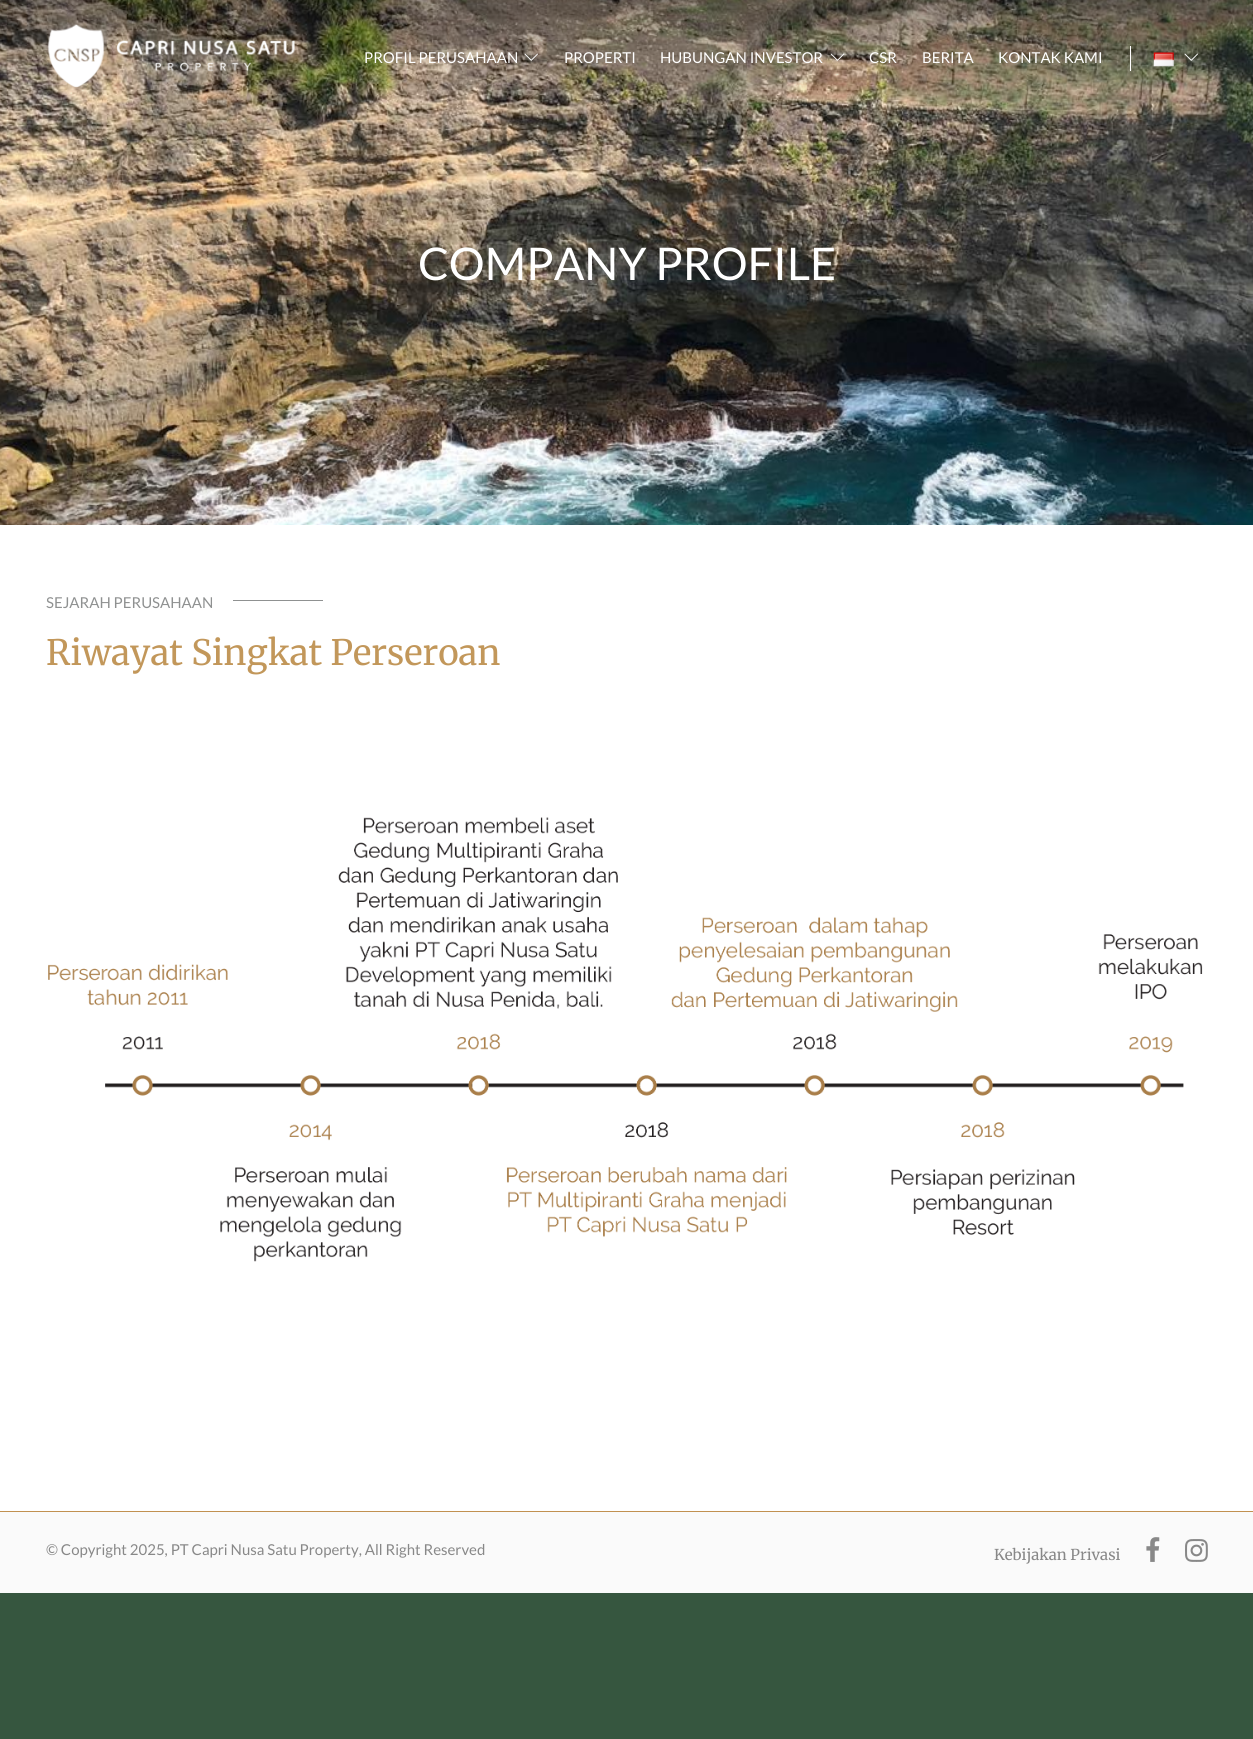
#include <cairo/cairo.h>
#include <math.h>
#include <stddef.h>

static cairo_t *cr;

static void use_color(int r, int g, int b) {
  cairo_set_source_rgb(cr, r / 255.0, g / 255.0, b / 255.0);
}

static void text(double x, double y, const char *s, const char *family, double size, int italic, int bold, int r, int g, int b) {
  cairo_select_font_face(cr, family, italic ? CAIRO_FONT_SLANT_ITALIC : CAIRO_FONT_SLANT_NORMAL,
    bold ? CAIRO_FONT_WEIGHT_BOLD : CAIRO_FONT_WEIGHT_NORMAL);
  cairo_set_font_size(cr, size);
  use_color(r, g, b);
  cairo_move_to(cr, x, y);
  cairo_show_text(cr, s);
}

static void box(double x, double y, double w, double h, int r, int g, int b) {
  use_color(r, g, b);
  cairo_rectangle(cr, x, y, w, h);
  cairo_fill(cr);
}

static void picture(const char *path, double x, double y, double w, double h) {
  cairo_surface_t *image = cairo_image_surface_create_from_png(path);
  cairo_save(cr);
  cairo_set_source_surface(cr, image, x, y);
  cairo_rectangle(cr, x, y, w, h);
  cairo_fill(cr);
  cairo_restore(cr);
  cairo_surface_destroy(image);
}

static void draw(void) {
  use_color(54, 86, 63);
  cairo_paint(cr);
  picture("img_06.png", 0, 0, 1253, 525);
  picture("img_01.png", 48, 24, 247, 63);
  picture("img_02.png", 524, 53, 14, 8);
  picture("img_03.png", 830, 53, 15, 8);
  box(1130, 46, 1, 25, 255, 255, 255);
  picture("img_04.png", 1153, 52, 21, 15);
  picture("img_05.png", 1184, 53, 14, 8);
  box(0, 525, 1253, 986, 255, 255, 255);
  box(233, 600, 90, 1, 143, 145, 145);
  picture("img_07.png", 48, 817, 1155, 445);
  box(0, 1512, 1253, 81, 250, 250, 250);
  box(0, 1511, 1253, 1, 193, 145, 81);
  picture("img_08.png", 1146, 1537, 14, 25);
  picture("img_09.png", 1185, 1539, 23, 23);
  text(364, 63, "PROFIL PERUSAHAAN", "Lato", 15, 0, 0, 255, 255, 255);
  text(564, 63, "PROPERTI", "Lato", 15, 0, 0, 255, 255, 255);
  text(660, 63, "HUBUNGAN INVESTOR", "Lato", 15, 0, 0, 255, 255, 255);
  text(869, 63, "CSR", "Lato", 15, 0, 0, 255, 255, 255);
  text(922, 63, "BERITA", "Lato", 15, 0, 0, 255, 255, 255);
  text(998, 63, "KONTAK KAMI", "Lato", 15, 0, 0, 255, 255, 255);
  text(418, 280, "COMPANY PROFILE", "Lato", 45, 0, 0, 255, 255, 255);
  text(46, 608, "SEJARAH PERUSAHAAN", "Lato", 15, 0, 0, 143, 145, 145);
  text(46, 665, "Riwayat Singkat Perseroan", "Merriweather Light", 35, 0, 0, 194, 151, 90);
  text(46, 1555, "© Copyright 2025, PT Capri Nusa Satu Property, All Right Reserved", "Lato", 15, 0, 0, 136, 136, 136);
  text(994, 1560, "Kebijakan Privasi", "Merriweather Light", 15, 0, 0, 136, 136, 136);
}

int main(void) {
  cairo_surface_t *surface = cairo_image_surface_create(CAIRO_FORMAT_RGB24, 1253, 1739);
  cr = cairo_create(surface);
  cairo_font_options_t *options = cairo_font_options_create();
  cairo_font_options_set_hint_metrics(options, CAIRO_HINT_METRICS_OFF);
  cairo_font_options_set_hint_style(options, CAIRO_HINT_STYLE_NONE);
  cairo_set_font_options(cr, options);
  cairo_set_miter_limit(cr, 4);
  draw();
  cairo_surface_write_to_png(surface, "out.png");
  cairo_font_options_destroy(options);
  cairo_destroy(cr);
  cairo_surface_destroy(surface);
  return 0;
}
